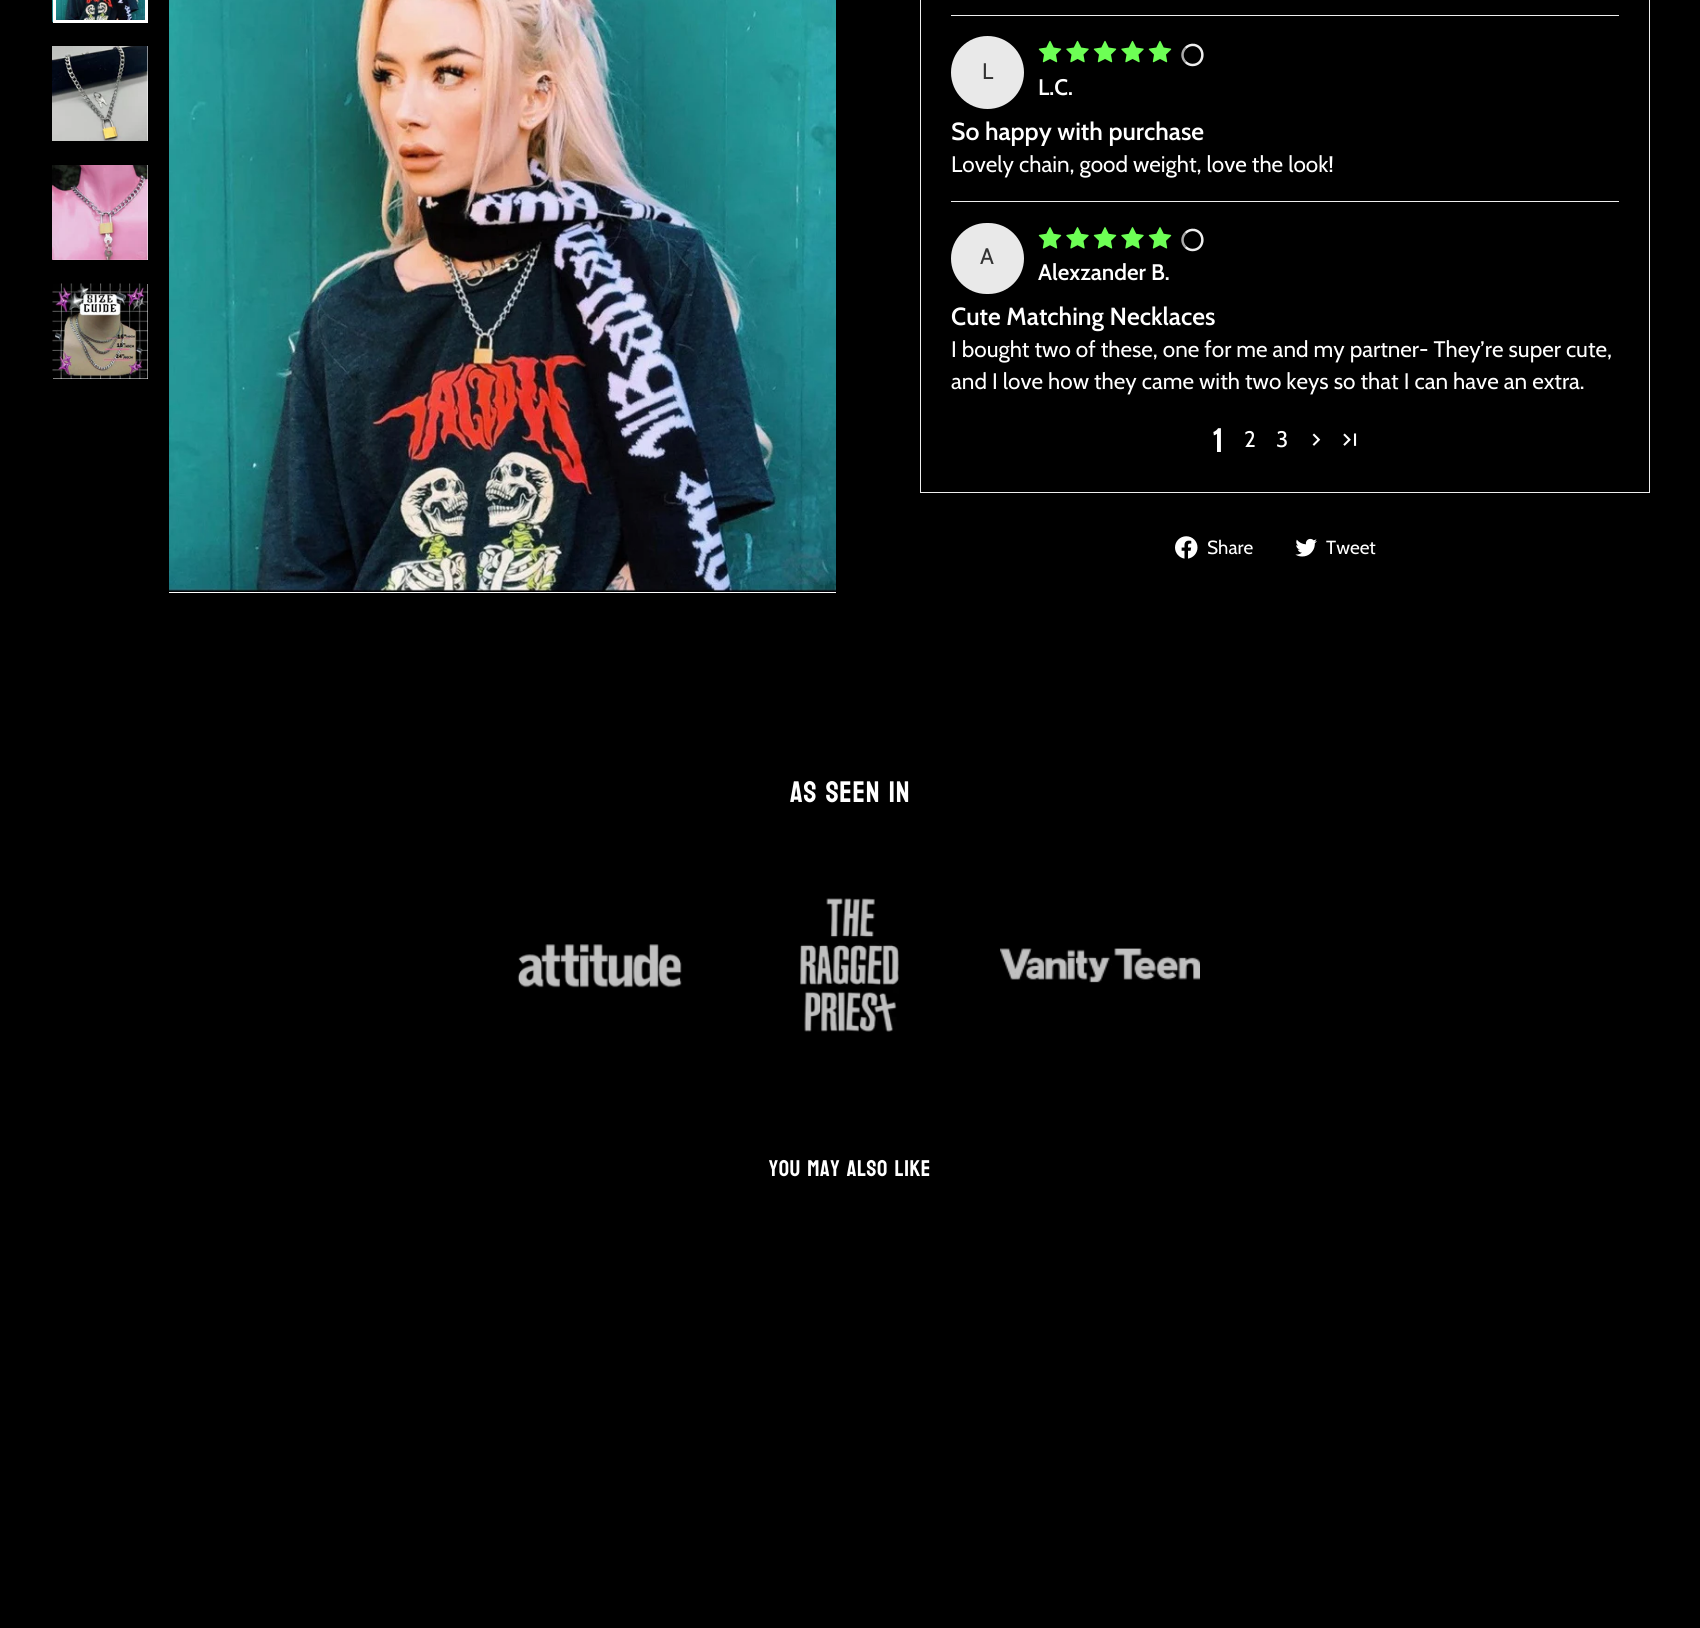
#include <cairo/cairo.h>
#include <math.h>
#include <stddef.h>

static cairo_t *cr;

static void use_color(int r, int g, int b) {
  cairo_set_source_rgb(cr, r / 255.0, g / 255.0, b / 255.0);
}

static void text(double x, double y, const char *s, const char *family, double size, int italic, int bold, int r, int g, int b) {
  cairo_select_font_face(cr, family, italic ? CAIRO_FONT_SLANT_ITALIC : CAIRO_FONT_SLANT_NORMAL,
    bold ? CAIRO_FONT_WEIGHT_BOLD : CAIRO_FONT_WEIGHT_NORMAL);
  cairo_set_font_size(cr, size);
  use_color(r, g, b);
  cairo_move_to(cr, x, y);
  cairo_show_text(cr, s);
}

static void spaced_text(double x, double y, const char *s, double letter, double word) {
  cairo_move_to(cr, x, y);
  while (*s) {
    char ch[5] = {0};
    int n = 0;
    do ch[n++] = *s++; while ((*s & 0xC0) == 0x80);
    cairo_show_text(cr, ch);
    cairo_rel_move_to(cr, letter + word * (*ch == ' '), 0);
  }
}

static void box(double x, double y, double w, double h, int r, int g, int b) {
  use_color(r, g, b);
  cairo_rectangle(cr, x, y, w, h);
  cairo_fill(cr);
}

static void round_rect(double x, double y, double w, double h, double r) {
  cairo_new_sub_path(cr);
  cairo_arc(cr, x + w - r, y + h - r, r, 0, M_PI / 2);
  cairo_arc(cr, x + r, y + h - r, r, M_PI / 2, M_PI);
  cairo_arc(cr, x + r, y + r, r, M_PI, 1.5 * M_PI);
  cairo_arc(cr, x + w - r, y + r, r, 1.5 * M_PI, 2 * M_PI);
  cairo_close_path(cr);
}

static void picture(const char *path, double x, double y, double w, double h) {
  cairo_surface_t *image = cairo_image_surface_create_from_png(path);
  cairo_save(cr);
  cairo_set_source_surface(cr, image, x, y);
  cairo_rectangle(cr, x, y, w, h);
  cairo_fill(cr);
  cairo_restore(cr);
  cairo_surface_destroy(image);
}

static void draw(void) {
  use_color(0, 0, 0);
  cairo_paint(cr);
  picture("img_01.png", 52, 0, 93, 23);
  cairo_rectangle(cr, 54.5, -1.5, 92, 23);
  use_color(255, 255, 255);
  cairo_set_line_width(cr, 3);
  cairo_stroke(cr);
  box(147, 46, 1, 95, 255, 255, 255);
  picture("img_02.png", 52, 46, 96, 95);
  box(53, 165, 95, 95, 255, 255, 255);
  picture("img_03.png", 52, 165, 96, 95);
  box(53, 284, 95, 95, 255, 255, 255);
  picture("img_04.png", 52, 283, 96, 96);
  box(169, 592, 667, 1, 255, 255, 255);
  picture("img_05.png", 169, 0, 667, 592);
  cairo_rectangle(cr, 920.5, -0.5, 729, 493);
  use_color(238, 238, 238);
  cairo_set_line_width(cr, 1);
  cairo_stroke(cr);
  box(951, 15, 668, 1, 238, 238, 238);
  picture("img_06.png", 1038, 40, 24, 23);
  picture("img_07.png", 1066, 40, 23, 23);
  picture("img_06.png", 1093, 40, 24, 23);
  picture("img_07.png", 1121, 40, 23, 23);
  picture("img_06.png", 1148, 40, 24, 23);
  cairo_new_path(cr);
  cairo_move_to(cr, 1185.5, 48);
  cairo_curve_to(cr, 1188, 45.5, 1191, 44.5, 1194.5, 45);
  cairo_curve_to(cr, 1206, 47.5, 1204.5, 65, 1192.5, 65);
  cairo_curve_to(cr, 1190, 65, 1187.5, 64, 1185.5, 62);
  cairo_set_line_width(cr, 2.5);
  cairo_stroke(cr);
  cairo_new_path(cr);
  cairo_move_to(cr, 1185.5, 62);
  cairo_curve_to(cr, 1181.5, 58, 1181.5, 52, 1185.5, 48);
  use_color(170, 170, 170);
  cairo_stroke(cr);
  use_color(233, 233, 233);
  cairo_arc(cr, 987.5, 72.5, 36.5, 0, 2 * M_PI);
  cairo_fill(cr);
  box(951, 201, 668, 1, 238, 238, 238);
  picture("img_08.png", 1038, 227, 24, 22);
  picture("img_09.png", 1066, 227, 23, 22);
  picture("img_08.png", 1093, 227, 24, 22);
  picture("img_09.png", 1121, 227, 23, 22);
  picture("img_08.png", 1148, 227, 24, 22);
  cairo_new_path(cr);
  cairo_move_to(cr, 1185.5, 233);
  cairo_curve_to(cr, 1188, 230.5, 1191, 229.5, 1194.5, 230);
  cairo_curve_to(cr, 1206, 232.5, 1204.5, 250, 1192.5, 250);
  cairo_curve_to(cr, 1190, 250, 1187.5, 249, 1185.5, 247);
  cairo_stroke(cr);
  cairo_new_path(cr);
  cairo_move_to(cr, 1185.5, 247);
  cairo_curve_to(cr, 1181.5, 243, 1181.5, 237, 1185.5, 233);
  use_color(170, 170, 170);
  cairo_stroke(cr);
  use_color(233, 233, 233);
  round_rect(951, 223, 73, 71, 35.5);
  cairo_fill(cr);
  picture("img_10.png", 1312, 433, 9, 13);
  picture("img_11.png", 1343, 433, 14, 13);
  picture("img_12.png", 1175, 536, 23, 23);
  picture("img_13.png", 1295, 538, 22, 19);
  picture("img_14.png", 517, 944, 165, 44);
  picture("img_15.png", 800, 898, 99, 134);
  picture("img_16.png", 1000, 948, 200, 35);
  text(982, 79, "L", "Cabin", 22.5, 0, 0, 51, 51, 51);
  text(1038, 95, "L.C.", "Cabin SemiBold", 22.5, 0, 0, 255, 255, 255);
  text(951, 140, "So happy with purchase", "Cabin SemiBold", 24.75, 0, 0, 255, 255, 255);
  text(951, 172, "Lovely chain, good weight, love the look!", "Cabin", 22.5, 0, 0, 255, 255, 255);
  text(980, 264, "A", "Cabin", 22.5, 0, 0, 51, 51, 51);
  text(1038, 280, "Alexzander B.", "Cabin SemiBold", 22.5, 0, 0, 255, 255, 255);
  text(951, 325, "Cute Matching Necklaces", "Cabin SemiBold", 24.75, 0, 0, 255, 255, 255);
  text(951, 357, "I bought two of these, one for me and my partner- They’re super cute,", "Cabin", 22.5, 0, 0, 255, 255, 255);
  text(951, 389, "and I love how they came with two keys so that I can have an extra.", "Cabin", 22.5, 0, 0, 255, 255, 255);
  text(1212, 452, "1", "Cabin SemiBold", 34, 0, 0, 255, 255, 255);
  text(1244, 447, "2", "Cabin", 22.5, 0, 0, 255, 255, 255);
  text(1276, 447, "3", "Cabin", 22.5, 0, 0, 255, 255, 255);
  text(1207, 554, "Share", "Cabin", 19, 0, 0, 255, 255, 255);
  text(1326, 554, "Tweet", "Cabin", 19, 0, 0, 255, 255, 255);
  cairo_select_font_face(cr, "Bayon", CAIRO_FONT_SLANT_NORMAL, CAIRO_FONT_WEIGHT_NORMAL);
  cairo_set_font_size(cr, 29.75);
  spaced_text(790, 802, "AS SEEN IN", 0.75, 0);
  cairo_set_font_size(cr, 22.75);
  spaced_text(769, 1176, "YOU MAY ALSO LIKE", 0.6, 0);
}

int main(void) {
  cairo_surface_t *surface = cairo_image_surface_create(CAIRO_FORMAT_RGB24, 1700, 1628);
  cr = cairo_create(surface);
  cairo_font_options_t *options = cairo_font_options_create();
  cairo_font_options_set_hint_metrics(options, CAIRO_HINT_METRICS_OFF);
  cairo_font_options_set_hint_style(options, CAIRO_HINT_STYLE_NONE);
  cairo_set_font_options(cr, options);
  cairo_set_miter_limit(cr, 4);
  draw();
  cairo_surface_write_to_png(surface, "out.png");
  cairo_font_options_destroy(options);
  cairo_destroy(cr);
  cairo_surface_destroy(surface);
  return 0;
}
